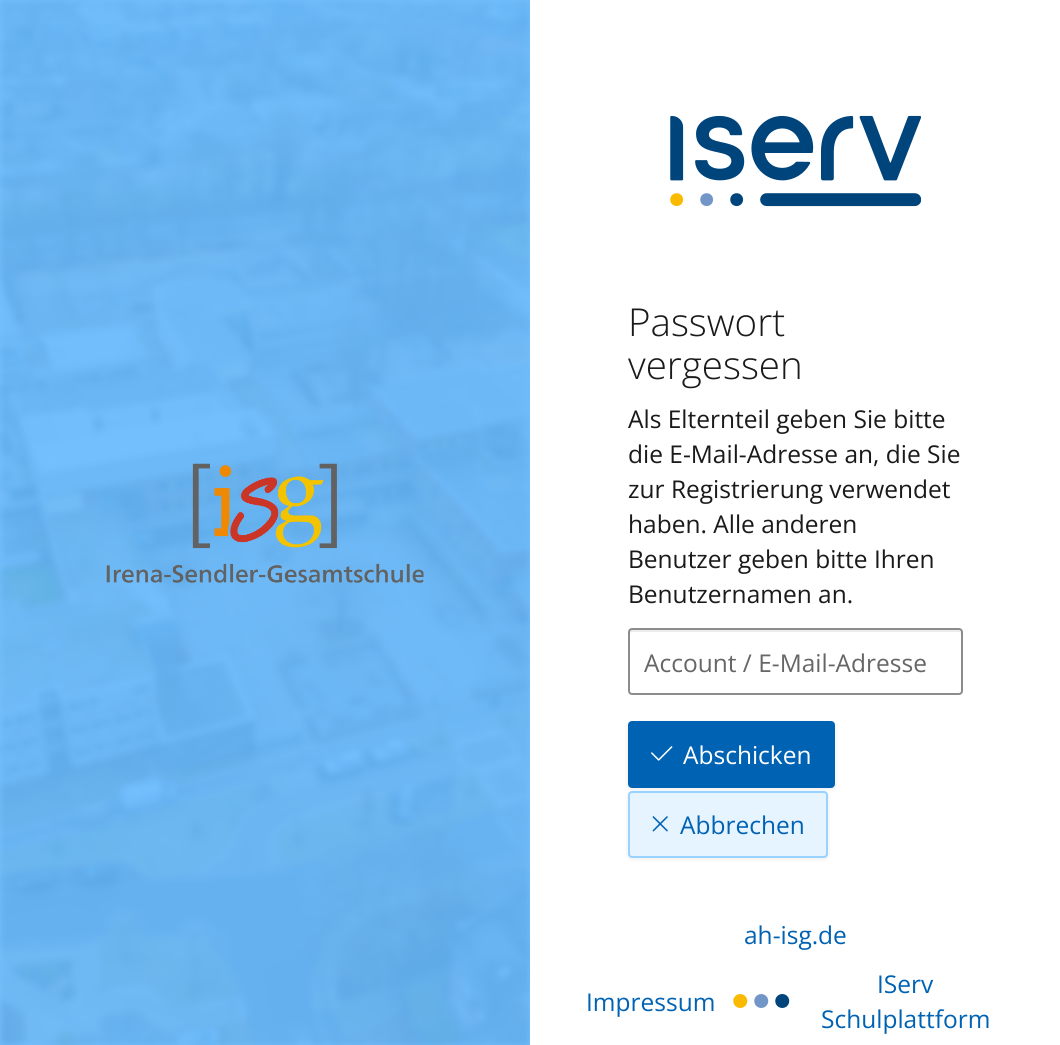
#include <cairo/cairo.h>
#include <math.h>
#include <stddef.h>

static cairo_t *cr;

static void use_color(int r, int g, int b) {
  cairo_set_source_rgb(cr, r / 255.0, g / 255.0, b / 255.0);
}

static void text(double x, double y, const char *s, const char *family, double size, int italic, int bold, int r, int g, int b) {
  cairo_select_font_face(cr, family, italic ? CAIRO_FONT_SLANT_ITALIC : CAIRO_FONT_SLANT_NORMAL,
    bold ? CAIRO_FONT_WEIGHT_BOLD : CAIRO_FONT_WEIGHT_NORMAL);
  cairo_set_font_size(cr, size);
  use_color(r, g, b);
  cairo_move_to(cr, x, y);
  cairo_show_text(cr, s);
}

static void box(double x, double y, double w, double h, int r, int g, int b) {
  use_color(r, g, b);
  cairo_rectangle(cr, x, y, w, h);
  cairo_fill(cr);
}

static void round_rect(double x, double y, double w, double h, double r) {
  cairo_new_sub_path(cr);
  cairo_arc(cr, x + w - r, y + h - r, r, 0, M_PI / 2);
  cairo_arc(cr, x + r, y + h - r, r, M_PI / 2, M_PI);
  cairo_arc(cr, x + r, y + r, r, M_PI, 1.5 * M_PI);
  cairo_arc(cr, x + w - r, y + r, r, 1.5 * M_PI, 2 * M_PI);
  cairo_close_path(cr);
}

static void shadow(double x, double y, double w, double h, double r, double blur, double alpha) {
  cairo_push_group_with_content(cr, CAIRO_CONTENT_ALPHA);
  cairo_set_operator(cr, CAIRO_OPERATOR_SOURCE);
  for (int i = 15; i >= -15 && fmin(w, h) + blur * i / 3 > 0; i -= 2) {
    double e = blur * i / 6;
    cairo_set_source_rgba(cr, 0, 0, 0, alpha * erfc((i - 1) / 8.5) / 2);
    round_rect(x - e, y - e, w + 2 * e, h + 2 * e, fmax(0, fmin(r + e + blur * .6, fmin(w, h) / 2 + e)));
    cairo_fill(cr);
  }
  cairo_pattern_t *soft = cairo_pop_group(cr);
  cairo_mask(cr, soft);
  cairo_pattern_destroy(soft);
}

static void picture(const char *path, double x, double y, double w, double h) {
  cairo_surface_t *image = cairo_image_surface_create_from_png(path);
  cairo_save(cr);
  cairo_set_source_surface(cr, image, x, y);
  cairo_rectangle(cr, x, y, w, h);
  cairo_fill(cr);
  cairo_restore(cr);
  cairo_surface_destroy(image);
}

static void draw(void) {
  use_color(117, 193, 255);
  cairo_paint(cr);
  picture("img_01.png", 0, 0, 530, 1045);
  picture("img_02.png", 106, 463, 318, 120);
  box(530, 0, 530, 1045, 255, 255, 255);
  picture("img_03.png", 670, 115, 251, 92);
  use_color(236, 236, 236);
  cairo_new_path(cr);
  cairo_move_to(cr, 632, 632);
  cairo_line_to(cr, 959, 632);
  cairo_curve_to(cr, 960, 632, 961, 633, 961, 634);
  cairo_curve_to(cr, 961, 632, 961, 630, 959, 630);
  cairo_line_to(cr, 631, 630);
  cairo_curve_to(cr, 630, 631, 630, 633, 630, 634);
  cairo_curve_to(cr, 630, 633, 631, 632, 632, 632);
  cairo_close_path(cr);
  cairo_fill(cr);
  round_rect(629, 629, 333, 65, 3);
  use_color(140, 140, 140);
  cairo_stroke(cr);
  use_color(0, 0, 0);
  shadow(628, 723, 207, 66, 4, 2.5, 0.08);
  use_color(0, 98, 179);
  round_rect(629, 722, 205, 65, 3);
  cairo_fill_preserve(cr);
  cairo_stroke(cr);
  picture("img_04.png", 651, 746, 22, 15);
  use_color(0, 0, 0);
  shadow(628, 793, 200, 66, 4, 2.5, 0.08);
  use_color(230, 244, 255);
  round_rect(629, 792, 198, 65, 3);
  cairo_fill_preserve(cr);
  use_color(153, 209, 255);
  cairo_stroke(cr);
  picture("img_05.png", 652, 816, 16, 16);
  picture("img_06.png", 733, 994, 15, 14);
  picture("img_07.png", 754, 994, 15, 14);
  picture("img_08.png", 775, 994, 15, 14);
  text(628, 336, "Passwort", "Open Sans Light", 38.5, 0, 0, 26, 26, 26);
  text(628, 379, "vergessen", "Open Sans Light", 38.5, 0, 0, 26, 26, 26);
  text(628, 428, "Als Elternteil geben Sie bitte", "Open Sans", 24.5, 0, 0, 26, 26, 26);
  text(628, 463, "die E-Mail-Adresse an, die Sie", "Open Sans", 24.5, 0, 0, 26, 26, 26);
  text(628, 498, "zur Registrierung verwendet", "Open Sans", 24.5, 0, 0, 26, 26, 26);
  text(628, 533, "haben. Alle anderen", "Open Sans", 24.5, 0, 0, 26, 26, 26);
  text(628, 568, "Benutzer geben bitte Ihren", "Open Sans", 24.5, 0, 0, 26, 26, 26);
  text(628, 603, "Benutzernamen an.", "Open Sans", 24.5, 0, 0, 26, 26, 26);
  text(644, 672, "Account / E-Mail-Adresse", "Open Sans", 24.5, 0, 0, 102, 102, 102);
  text(683, 764, "Abschicken", "Open Sans", 24.5, 0, 0, 255, 255, 255);
  text(680, 834, "Abbrechen", "Open Sans", 24.5, 0, 0, 0, 98, 179);
  text(744, 944, "ah-isg.de", "Open Sans", 24.5, 0, 0, 0, 98, 179);
  text(586, 1011, "Impressum", "Open Sans", 24.5, 0, 0, 0, 98, 179);
  text(877, 993, "IServ", "Open Sans", 24.5, 0, 0, 0, 98, 179);
  text(821, 1028, "Schulplattform", "Open Sans", 24.5, 0, 0, 0, 98, 179);
}

int main(void) {
  cairo_surface_t *surface = cairo_image_surface_create(CAIRO_FORMAT_RGB24, 1060, 1045);
  cr = cairo_create(surface);
  cairo_font_options_t *options = cairo_font_options_create();
  cairo_font_options_set_hint_metrics(options, CAIRO_HINT_METRICS_OFF);
  cairo_font_options_set_hint_style(options, CAIRO_HINT_STYLE_NONE);
  cairo_set_font_options(cr, options);
  cairo_set_miter_limit(cr, 4);
  draw();
  cairo_surface_write_to_png(surface, "out.png");
  cairo_font_options_destroy(options);
  cairo_destroy(cr);
  cairo_surface_destroy(surface);
  return 0;
}
